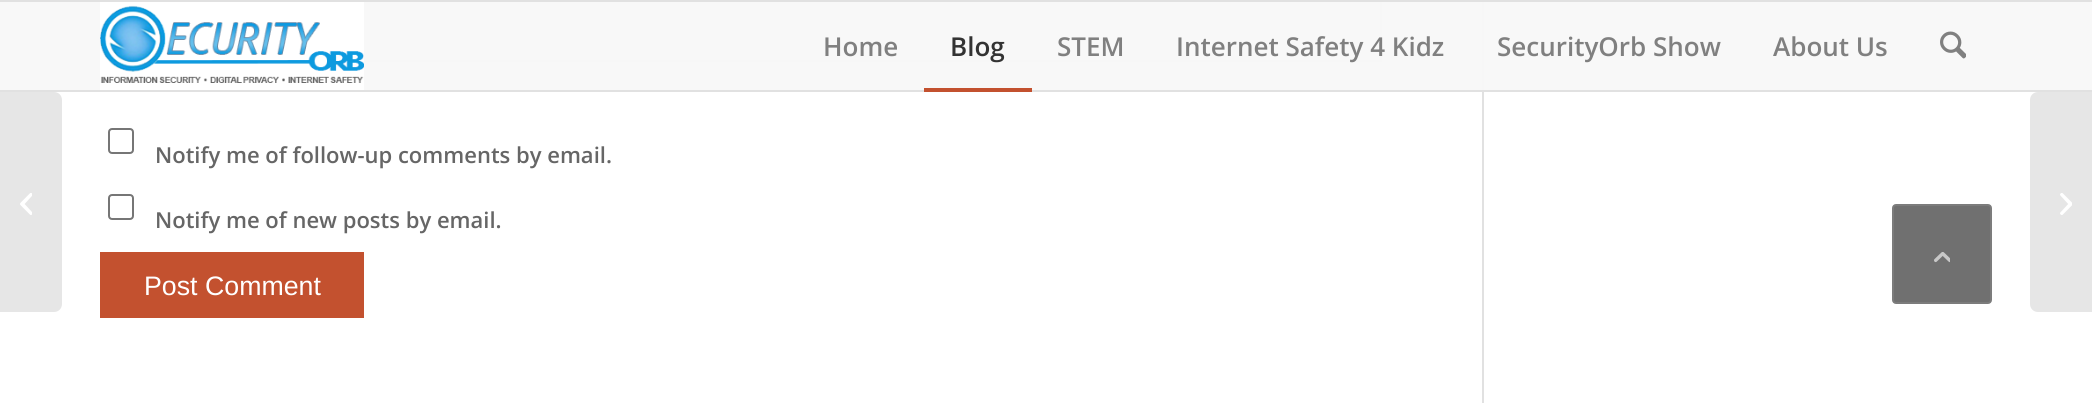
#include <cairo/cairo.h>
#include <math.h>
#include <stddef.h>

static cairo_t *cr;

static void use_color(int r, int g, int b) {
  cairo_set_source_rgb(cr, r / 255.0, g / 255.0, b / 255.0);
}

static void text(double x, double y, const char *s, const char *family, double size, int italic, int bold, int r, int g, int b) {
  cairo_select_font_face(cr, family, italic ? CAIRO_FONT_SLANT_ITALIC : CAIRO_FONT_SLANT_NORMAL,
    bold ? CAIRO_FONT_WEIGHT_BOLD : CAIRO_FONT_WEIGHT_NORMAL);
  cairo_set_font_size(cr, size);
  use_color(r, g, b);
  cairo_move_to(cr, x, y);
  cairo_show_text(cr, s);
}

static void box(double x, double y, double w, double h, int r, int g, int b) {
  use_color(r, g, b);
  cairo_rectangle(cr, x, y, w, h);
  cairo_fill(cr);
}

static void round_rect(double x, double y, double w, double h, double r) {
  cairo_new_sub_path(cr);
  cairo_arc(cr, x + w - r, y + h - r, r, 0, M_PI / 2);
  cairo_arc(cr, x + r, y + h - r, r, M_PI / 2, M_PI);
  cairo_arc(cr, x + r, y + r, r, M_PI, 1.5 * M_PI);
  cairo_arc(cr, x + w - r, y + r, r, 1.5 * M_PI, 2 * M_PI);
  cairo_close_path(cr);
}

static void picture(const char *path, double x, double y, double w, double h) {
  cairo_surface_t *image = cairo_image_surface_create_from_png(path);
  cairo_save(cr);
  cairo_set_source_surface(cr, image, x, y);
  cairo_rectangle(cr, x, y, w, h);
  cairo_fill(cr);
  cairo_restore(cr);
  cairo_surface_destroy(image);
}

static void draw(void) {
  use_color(255, 255, 255);
  cairo_paint(cr);
  box(0, 2, 2092, 88, 248, 248, 248);
  box(1482, 0, 2, 92, 247, 247, 247);
  cairo_rectangle(cr, 101, -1, 1280, 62);
  cairo_stroke(cr);
  box(0, 0, 2092, 2, 225, 225, 225);
  box(0, 90, 2092, 2, 225, 225, 225);
  picture("img_01.png", 100, 2, 264, 88);
  box(924, 88, 108, 4, 195, 81, 47);
  picture("img_02.png", 1940, 31, 26, 28);
  use_color(230, 230, 230);
  cairo_new_path(cr);
  cairo_move_to(cr, 0, 92);
  cairo_line_to(cr, 54, 92);
  cairo_curve_to(cr, 58.5, 92, 62, 95.5, 62, 100);
  cairo_line_to(cr, 62, 304);
  cairo_curve_to(cr, 62, 308.5, 58.5, 312, 54, 312);
  cairo_line_to(cr, 0, 312);
  cairo_close_path(cr);
  cairo_fill(cr);
  picture("img_03.png", 20, 193, 12, 22);
  box(1482, 92, 2, 311, 225, 225, 225);
  round_rect(109, 129, 24, 24, 3);
  use_color(118, 118, 118);
  cairo_stroke(cr);
  round_rect(109, 195, 24, 24, 3);
  cairo_stroke(cr);
  box(100, 252, 264, 66, 195, 81, 47);
  use_color(230, 230, 230);
  cairo_new_path(cr);
  cairo_move_to(cr, 2038, 92);
  cairo_line_to(cr, 2092, 92);
  cairo_line_to(cr, 2092, 312);
  cairo_line_to(cr, 2038, 312);
  cairo_curve_to(cr, 2033.5, 312, 2030, 308.5, 2030, 304);
  cairo_line_to(cr, 2030, 100);
  cairo_curve_to(cr, 2030, 95.5, 2033.5, 92, 2038, 92);
  cairo_close_path(cr);
  cairo_fill(cr);
  picture("img_04.png", 2060, 193, 12, 22);
  use_color(112, 112, 112);
  round_rect(1893, 205, 98, 98, 3);
  cairo_fill_preserve(cr);
  use_color(124, 124, 124);
  cairo_stroke(cr);
  picture("img_05.png", 1934, 252, 16, 11);
  text(823, 56, "Home", "Open Sans SemiBold", 26, 0, 0, 128, 128, 128);
  text(950, 56, "Blog", "Open Sans SemiBold", 26, 0, 0, 51, 51, 51);
  text(1057, 56, "STEM", "Open Sans SemiBold", 26, 0, 0, 128, 128, 128);
  text(1176, 56, "Internet Safety 4 Kidz", "Open Sans SemiBold", 26, 0, 0, 128, 128, 128);
  text(1497, 56, "SecurityOrb Show", "Open Sans SemiBold", 26, 0, 0, 128, 128, 128);
  text(1773, 56, "About Us", "Open Sans SemiBold", 26, 0, 0, 128, 128, 128);
  text(155, 163, "Notify me of follow-up comments by email.", "Open Sans SemiBold", 22, 0, 0, 102, 102, 102);
  text(155, 228, "Notify me of new posts by email.", "Open Sans SemiBold", 22, 0, 0, 102, 102, 102);
  text(144, 295, "Post Comment", "Liberation Sans", 26.75, 0, 0, 255, 255, 255);
}

int main(void) {
  cairo_surface_t *surface = cairo_image_surface_create(CAIRO_FORMAT_RGB24, 2092, 403);
  cr = cairo_create(surface);
  cairo_font_options_t *options = cairo_font_options_create();
  cairo_font_options_set_hint_metrics(options, CAIRO_HINT_METRICS_OFF);
  cairo_font_options_set_hint_style(options, CAIRO_HINT_STYLE_NONE);
  cairo_set_font_options(cr, options);
  cairo_set_miter_limit(cr, 4);
  draw();
  cairo_surface_write_to_png(surface, "out.png");
  cairo_font_options_destroy(options);
  cairo_destroy(cr);
  cairo_surface_destroy(surface);
  return 0;
}
